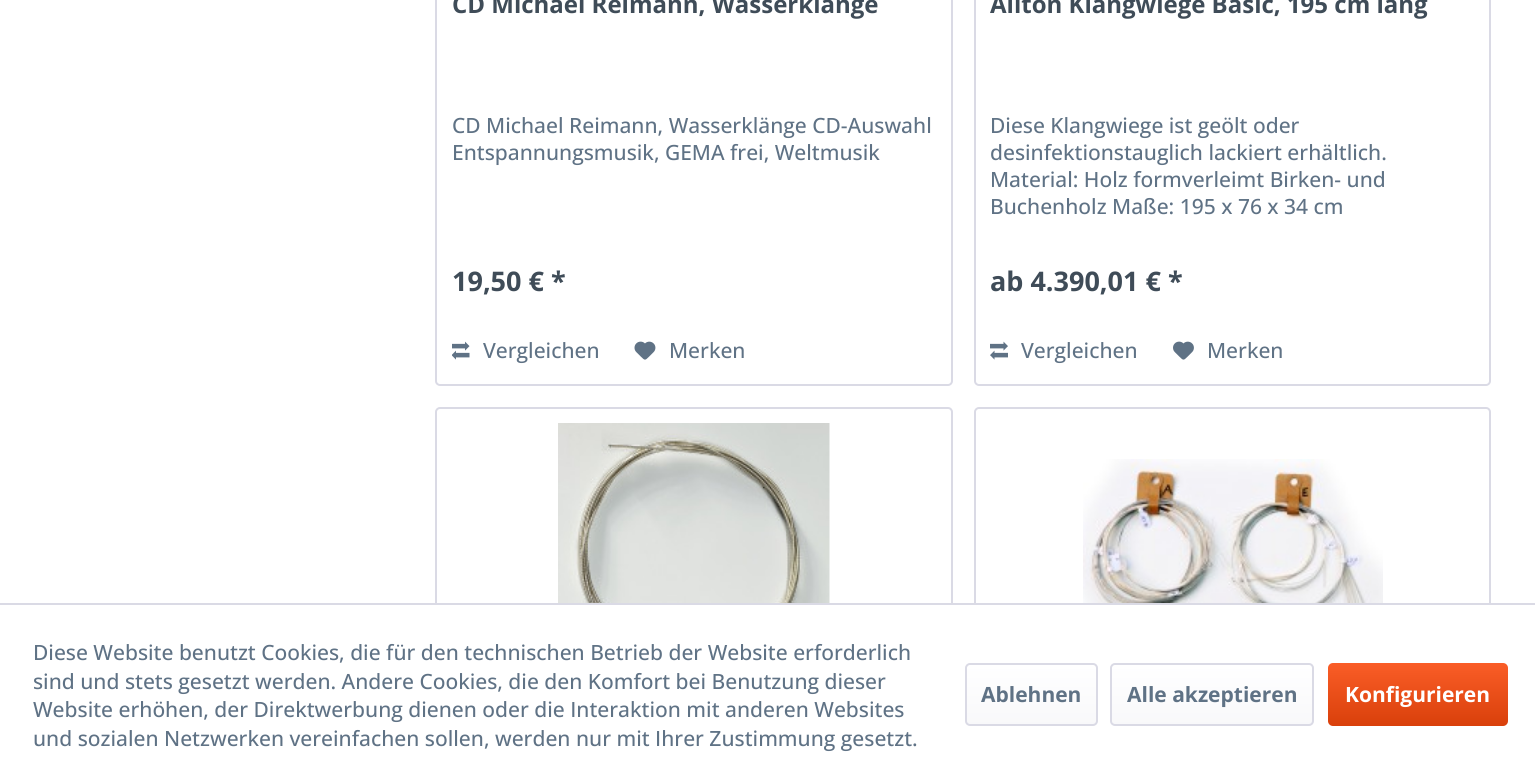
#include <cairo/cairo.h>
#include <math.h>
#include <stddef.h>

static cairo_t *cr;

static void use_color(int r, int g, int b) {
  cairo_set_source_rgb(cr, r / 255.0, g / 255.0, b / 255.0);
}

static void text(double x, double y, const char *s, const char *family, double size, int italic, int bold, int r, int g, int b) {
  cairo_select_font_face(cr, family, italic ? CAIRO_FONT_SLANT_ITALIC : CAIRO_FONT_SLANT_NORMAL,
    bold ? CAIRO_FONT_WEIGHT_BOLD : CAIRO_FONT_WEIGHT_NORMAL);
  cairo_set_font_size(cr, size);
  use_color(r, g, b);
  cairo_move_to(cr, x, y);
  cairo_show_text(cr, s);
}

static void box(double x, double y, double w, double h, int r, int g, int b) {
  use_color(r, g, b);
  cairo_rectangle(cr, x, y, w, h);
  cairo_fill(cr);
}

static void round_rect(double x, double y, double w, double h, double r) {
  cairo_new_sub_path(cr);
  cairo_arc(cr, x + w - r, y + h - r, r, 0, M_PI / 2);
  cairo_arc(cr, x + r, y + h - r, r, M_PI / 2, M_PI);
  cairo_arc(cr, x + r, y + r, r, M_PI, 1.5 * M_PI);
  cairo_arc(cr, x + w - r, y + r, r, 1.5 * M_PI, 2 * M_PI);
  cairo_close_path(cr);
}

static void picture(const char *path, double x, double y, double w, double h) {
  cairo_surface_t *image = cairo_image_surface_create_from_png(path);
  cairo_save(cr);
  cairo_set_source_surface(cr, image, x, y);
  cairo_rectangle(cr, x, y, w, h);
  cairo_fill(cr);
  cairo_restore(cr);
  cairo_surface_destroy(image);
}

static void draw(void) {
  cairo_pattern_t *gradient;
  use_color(255, 255, 255);
  cairo_paint(cr);
  round_rect(436, -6, 516, 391, 4);
  use_color(218, 218, 229);
  cairo_stroke(cr);
  picture("img_01.png", 452, 341, 18, 19);
  picture("img_02.png", 634, 341, 22, 19);
  round_rect(975, -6, 515, 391, 4);
  cairo_stroke(cr);
  picture("img_03.png", 990, 341, 18, 19);
  picture("img_04.png", 1173, 341, 21, 19);
  round_rect(436, 408, 516, 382, 4);
  cairo_stroke(cr);
  picture("img_05.png", 558, 423, 272, 180);
  round_rect(975, 408, 515, 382, 4);
  cairo_stroke(cr);
  picture("img_06.png", 1083, 459, 300, 144);
  box(435, 605, 1056, 179, 255, 255, 255);
  box(0, 603, 1535, 2, 218, 218, 229);
  gradient = cairo_pattern_create_linear(1031, 665, 1031, 725);
  cairo_pattern_add_color_stop_rgba(gradient, 0, 1, 1, 1, 1);
  cairo_pattern_add_color_stop_rgba(gradient, 1, 0.973, 0.973, 0.98, 1);
  cairo_set_source(cr, gradient);
  cairo_pattern_destroy(gradient);
  round_rect(966, 665, 131, 60, 3);
  cairo_fill(cr);
  round_rect(966, 664, 131, 61, 4);
  use_color(218, 218, 229);
  cairo_stroke(cr);
  gradient = cairo_pattern_create_linear(1212, 665, 1212, 725);
  cairo_pattern_add_color_stop_rgba(gradient, 0, 1, 1, 1, 1);
  cairo_pattern_add_color_stop_rgba(gradient, 1, 0.973, 0.973, 0.98, 1);
  cairo_set_source(cr, gradient);
  cairo_pattern_destroy(gradient);
  round_rect(1112, 665, 201, 60, 3);
  cairo_fill(cr);
  round_rect(1111, 664, 202, 61, 4);
  use_color(218, 218, 229);
  cairo_stroke(cr);
  gradient = cairo_pattern_create_linear(1418, 663, 1418, 726);
  cairo_pattern_add_color_stop_rgba(gradient, 0, 0.98, 0.365, 0.153, 1);
  cairo_pattern_add_color_stop_rgba(gradient, 1, 0.851, 0.251, 0.043, 1);
  cairo_set_source(cr, gradient);
  cairo_pattern_destroy(gradient);
  round_rect(1328, 663, 180, 63, 5);
  cairo_fill(cr);
  text(452, 13, "CD Michael Reimann, Wasserklänge", "Open Sans", 24, 0, 1, 63, 76, 88);
  text(452, 133, "CD Michael Reimann, Wasserklänge CD-Auswahl", "Open Sans Medium", 21, 0, 0, 95, 114, 133);
  text(452, 160, "Entspannungsmusik, GEMA frei, Weltmusik", "Open Sans Medium", 21, 0, 0, 95, 114, 133);
  text(452, 291, "19,50 € *", "Open Sans", 27, 0, 1, 63, 76, 88);
  text(483, 358, "Vergleichen", "Open Sans Medium", 21, 0, 0, 95, 114, 133);
  text(669, 358, "Merken", "Open Sans Medium", 21, 0, 0, 95, 114, 133);
  text(990, 13, "Allton Klangwiege Basic, 195 cm lang", "Open Sans", 24, 0, 1, 63, 76, 88);
  text(990, 133, "Diese Klangwiege ist geölt oder", "Open Sans Medium", 21, 0, 0, 95, 114, 133);
  text(990, 160, "desinfektionstauglich lackiert erhältlich.", "Open Sans Medium", 21, 0, 0, 95, 114, 133);
  text(990, 187, "Material: Holz formverleimt Birken- und", "Open Sans Medium", 21, 0, 0, 95, 114, 133);
  text(990, 214, "Buchenholz Maße: 195 x 76 x 34 cm", "Open Sans Medium", 21, 0, 0, 95, 114, 133);
  text(990, 291, "ab 4.390,01 € *", "Open Sans", 27, 0, 1, 63, 76, 88);
  text(1021, 358, "Vergleichen", "Open Sans Medium", 21, 0, 0, 95, 114, 133);
  text(1207, 358, "Merken", "Open Sans Medium", 21, 0, 0, 95, 114, 133);
  text(33, 660, "Diese Website benutzt Cookies, die für den technischen Betrieb der Website erforderlich", "Open Sans Medium", 21, 0, 0, 95, 114, 133);
  text(33, 689, "sind und stets gesetzt werden. Andere Cookies, die den Komfort bei Benutzung dieser", "Open Sans Medium", 21, 0, 0, 95, 114, 133);
  text(33, 717, "Website erhöhen, der Direktwerbung dienen oder die Interaktion mit anderen Websites", "Open Sans Medium", 21, 0, 0, 95, 114, 133);
  text(33, 746, "und sozialen Netzwerken vereinfachen sollen, werden nur mit Ihrer Zustimmung gesetzt.", "Open Sans Medium", 21, 0, 0, 95, 114, 133);
  text(981, 702, "Ablehnen", "Open Sans", 21, 0, 1, 95, 114, 133);
  text(1127, 702, "Alle akzeptieren", "Open Sans", 21, 0, 1, 95, 114, 133);
  text(1345, 702, "Konfigurieren", "Open Sans", 21, 0, 1, 255, 255, 255);
}

int main(void) {
  cairo_surface_t *surface = cairo_image_surface_create(CAIRO_FORMAT_RGB24, 1535, 784);
  cr = cairo_create(surface);
  cairo_font_options_t *options = cairo_font_options_create();
  cairo_font_options_set_hint_metrics(options, CAIRO_HINT_METRICS_OFF);
  cairo_font_options_set_hint_style(options, CAIRO_HINT_STYLE_NONE);
  cairo_set_font_options(cr, options);
  cairo_set_miter_limit(cr, 4);
  draw();
  cairo_surface_write_to_png(surface, "out.png");
  cairo_font_options_destroy(options);
  cairo_destroy(cr);
  cairo_surface_destroy(surface);
  return 0;
}
